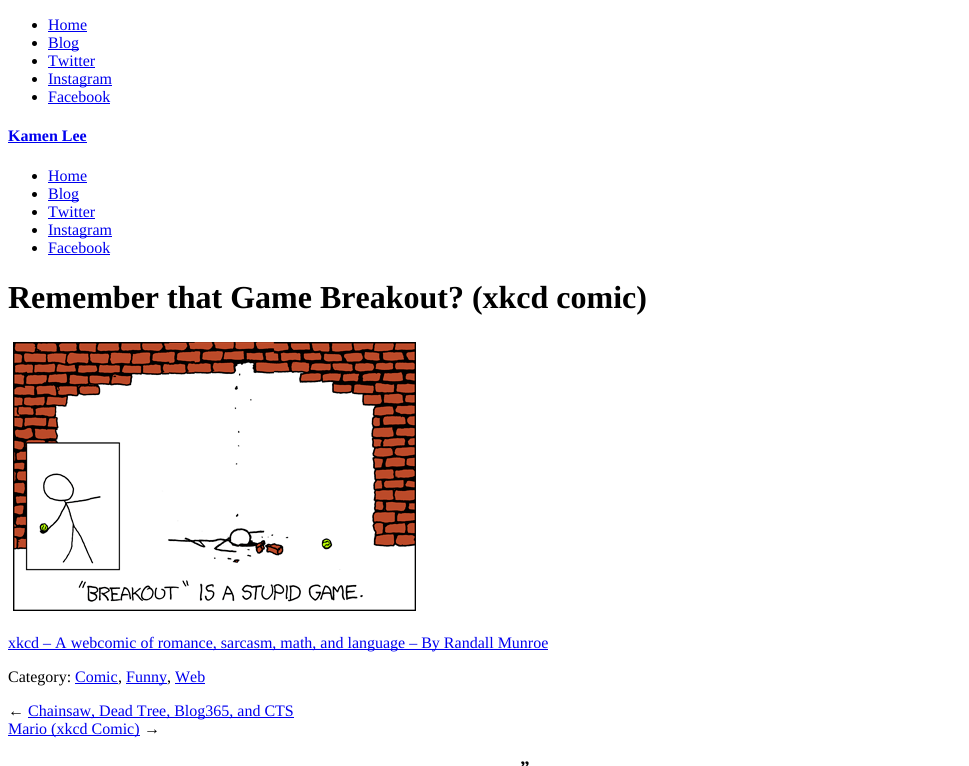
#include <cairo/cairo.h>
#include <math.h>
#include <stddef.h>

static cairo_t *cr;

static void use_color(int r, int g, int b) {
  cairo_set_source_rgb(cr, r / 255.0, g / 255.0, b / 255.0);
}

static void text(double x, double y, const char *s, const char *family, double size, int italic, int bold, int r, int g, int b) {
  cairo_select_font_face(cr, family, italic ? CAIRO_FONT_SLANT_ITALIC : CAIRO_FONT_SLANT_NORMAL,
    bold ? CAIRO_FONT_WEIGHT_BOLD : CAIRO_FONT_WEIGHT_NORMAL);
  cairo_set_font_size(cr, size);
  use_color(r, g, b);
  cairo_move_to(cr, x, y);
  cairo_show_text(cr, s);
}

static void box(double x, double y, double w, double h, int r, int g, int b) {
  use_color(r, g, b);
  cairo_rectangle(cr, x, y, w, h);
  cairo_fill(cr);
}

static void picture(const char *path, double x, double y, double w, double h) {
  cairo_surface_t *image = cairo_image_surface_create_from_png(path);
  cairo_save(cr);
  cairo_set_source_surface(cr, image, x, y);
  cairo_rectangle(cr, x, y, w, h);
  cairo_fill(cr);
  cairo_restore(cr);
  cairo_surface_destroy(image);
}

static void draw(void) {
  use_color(255, 255, 255);
  cairo_paint(cr);
  use_color(0, 0, 0);
  cairo_arc(cr, 34.5, 25.5, 2.5, 0, 2 * M_PI);
  cairo_fill(cr);
  box(48, 31, 39, 1, 0, 0, 238);
  use_color(0, 0, 0);
  cairo_arc(cr, 34.5, 43.5, 2.5, 0, 2 * M_PI);
  cairo_fill(cr);
  box(48, 49, 31, 1, 0, 0, 238);
  use_color(0, 0, 0);
  cairo_arc(cr, 34.5, 61.5, 2.5, 0, 2 * M_PI);
  cairo_fill(cr);
  box(48, 67, 47, 1, 0, 0, 238);
  use_color(0, 0, 0);
  cairo_arc(cr, 34.5, 79.5, 2.5, 0, 2 * M_PI);
  cairo_fill(cr);
  box(48, 85, 64, 1, 0, 0, 238);
  use_color(0, 0, 0);
  cairo_arc(cr, 34.5, 97.5, 2.5, 0, 2 * M_PI);
  cairo_fill(cr);
  box(48, 103, 62, 1, 0, 0, 238);
  box(8, 142, 79, 1, 0, 0, 238);
  use_color(0, 0, 0);
  cairo_arc(cr, 34.5, 176.5, 2.5, 0, 2 * M_PI);
  cairo_fill(cr);
  box(48, 182, 39, 1, 0, 0, 238);
  use_color(0, 0, 0);
  cairo_arc(cr, 34.5, 194.5, 2.5, 0, 2 * M_PI);
  cairo_fill(cr);
  box(48, 200, 31, 1, 0, 0, 238);
  use_color(0, 0, 0);
  cairo_arc(cr, 34.5, 212.5, 2.5, 0, 2 * M_PI);
  cairo_fill(cr);
  box(48, 218, 47, 1, 0, 0, 238);
  use_color(0, 0, 0);
  cairo_arc(cr, 34.5, 230.5, 2.5, 0, 2 * M_PI);
  cairo_fill(cr);
  box(48, 236, 64, 1, 0, 0, 238);
  use_color(0, 0, 0);
  cairo_arc(cr, 34.5, 248.5, 2.5, 0, 2 * M_PI);
  cairo_fill(cr);
  box(48, 254, 62, 1, 0, 0, 238);
  picture("img_01.png", 13, 342, 403, 269);
  box(8, 649, 540, 1, 0, 0, 238);
  box(75, 683, 43, 1, 0, 0, 238);
  box(126, 683, 41, 1, 0, 0, 238);
  box(175, 683, 30, 1, 0, 0, 238);
  box(28, 717, 266, 1, 0, 0, 238);
  box(8, 735, 132, 1, 0, 0, 238);
  text(48, 30, "Home", "Liberation Serif", 16, 0, 0, 0, 0, 238);
  text(48, 48, "Blog", "Liberation Serif", 16, 0, 0, 0, 0, 238);
  text(48, 66, "Twitter", "Liberation Serif", 16, 0, 0, 0, 0, 238);
  text(48, 84, "Instagram", "Liberation Serif", 16, 0, 0, 0, 0, 238);
  text(48, 102, "Facebook", "Liberation Serif", 16, 0, 0, 0, 0, 238);
  text(8, 141, "Kamen Lee", "Liberation Serif", 16, 0, 1, 0, 0, 238);
  text(48, 181, "Home", "Liberation Serif", 16, 0, 0, 0, 0, 238);
  text(48, 199, "Blog", "Liberation Serif", 16, 0, 0, 0, 0, 238);
  text(48, 217, "Twitter", "Liberation Serif", 16, 0, 0, 0, 0, 238);
  text(48, 235, "Instagram", "Liberation Serif", 16, 0, 0, 0, 0, 238);
  text(48, 253, "Facebook", "Liberation Serif", 16, 0, 0, 0, 0, 238);
  text(8, 308, "Remember that Game Breakout? (xkcd comic)", "Liberation Serif", 32, 0, 1, 0, 0, 0);
  text(8, 648, "xkcd – A webcomic of romance, sarcasm, math, and language – By Randall Munroe", "Liberation Serif", 16, 0, 0, 0, 0, 238);
  text(8, 682, "Category:", "Liberation Serif", 16, 0, 0, 0, 0, 0);
  text(75, 682, "Comic", "Liberation Serif", 16, 0, 0, 0, 0, 238);
  text(118, 682, ",", "Liberation Serif", 16, 0, 0, 0, 0, 0);
  text(126, 682, "Funny", "Liberation Serif", 16, 0, 0, 0, 0, 238);
  text(167, 682, ",", "Liberation Serif", 16, 0, 0, 0, 0, 0);
  text(175, 682, "Web", "Liberation Serif", 16, 0, 0, 0, 0, 238);
  text(8, 716, "←", "Liberation Serif", 16, 0, 0, 0, 0, 0);
  text(28, 716, "Chainsaw, Dead Tree, Blog365, and CTS", "Liberation Serif", 16, 0, 0, 0, 0, 238);
  text(8, 734, "Mario (xkcd Comic)", "Liberation Serif", 16, 0, 0, 0, 0, 238);
  text(144, 734, "→", "Liberation Serif", 16, 0, 0, 0, 0, 0);
  text(520, 774, "”", "Liberation Serif", 19, 0, 1, 0, 0, 0);
}

int main(void) {
  cairo_surface_t *surface = cairo_image_surface_create(CAIRO_FORMAT_RGB24, 969, 766);
  cr = cairo_create(surface);
  cairo_font_options_t *options = cairo_font_options_create();
  cairo_font_options_set_hint_metrics(options, CAIRO_HINT_METRICS_OFF);
  cairo_font_options_set_hint_style(options, CAIRO_HINT_STYLE_NONE);
  cairo_set_font_options(cr, options);
  cairo_set_miter_limit(cr, 4);
  draw();
  cairo_surface_write_to_png(surface, "out.png");
  cairo_font_options_destroy(options);
  cairo_destroy(cr);
  cairo_surface_destroy(surface);
  return 0;
}
